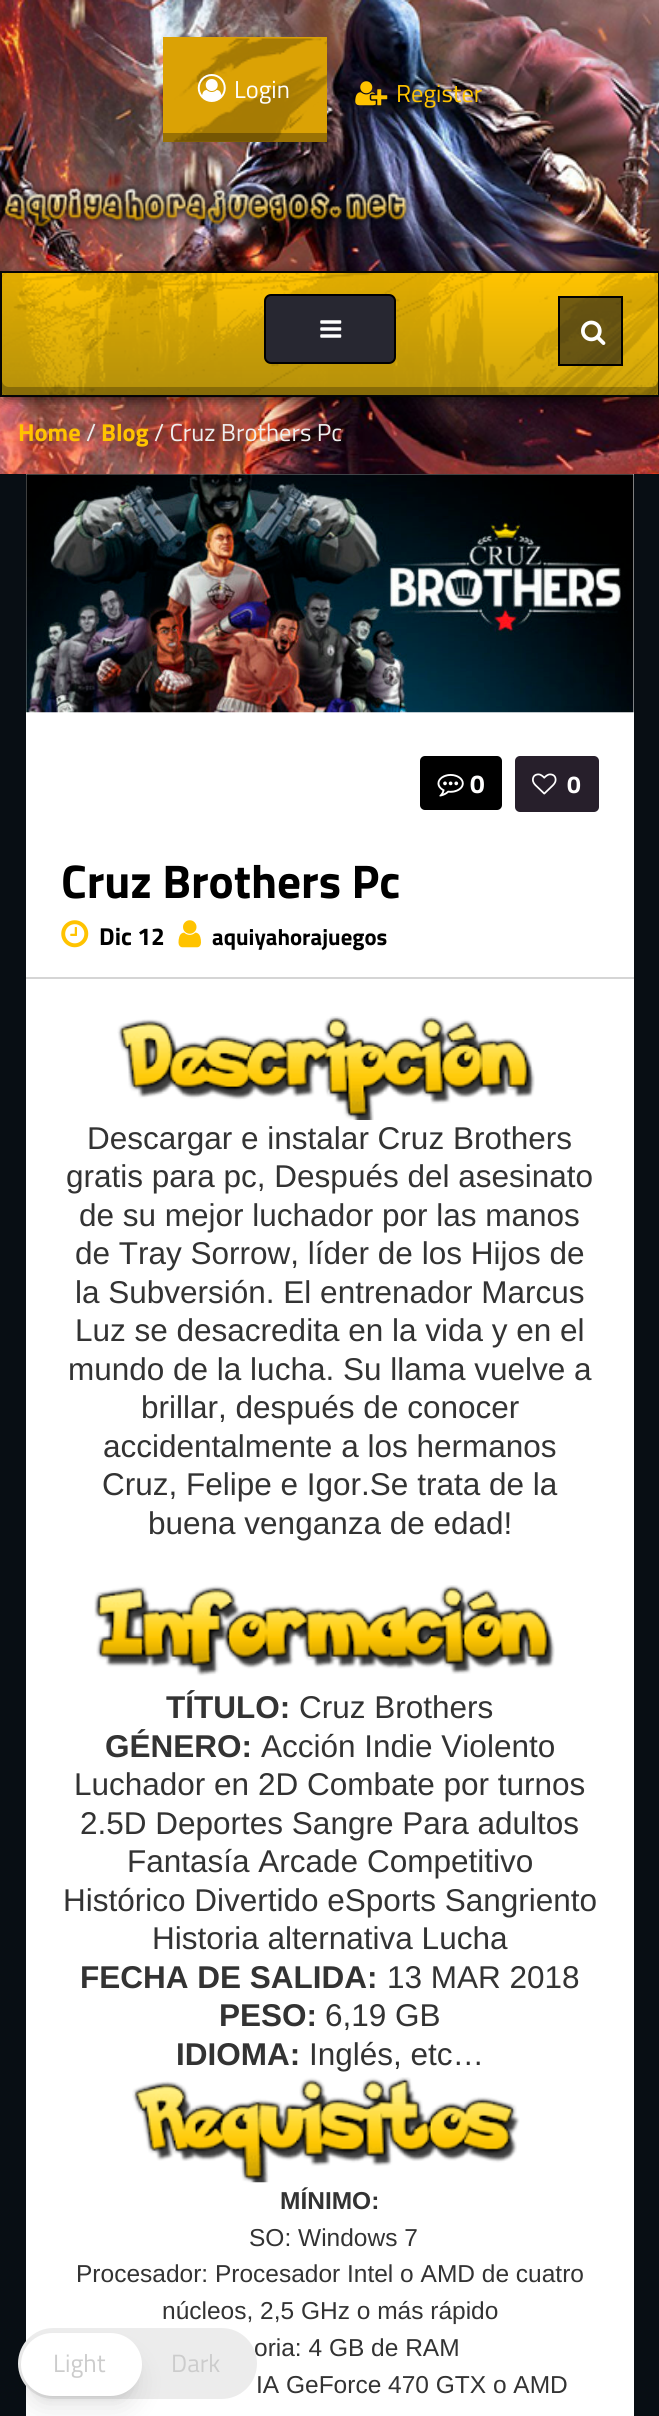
#include <cairo/cairo.h>
#include <math.h>
#include <stddef.h>

static cairo_t *cr;

static void use_color(int r, int g, int b) {
  cairo_set_source_rgb(cr, r / 255.0, g / 255.0, b / 255.0);
}

static void text(double x, double y, const char *s, const char *family, double size, int italic, int bold, int r, int g, int b) {
  cairo_select_font_face(cr, family, italic ? CAIRO_FONT_SLANT_ITALIC : CAIRO_FONT_SLANT_NORMAL,
    bold ? CAIRO_FONT_WEIGHT_BOLD : CAIRO_FONT_WEIGHT_NORMAL);
  cairo_set_font_size(cr, size);
  use_color(r, g, b);
  cairo_move_to(cr, x, y);
  cairo_show_text(cr, s);
}

static void box(double x, double y, double w, double h, int r, int g, int b) {
  use_color(r, g, b);
  cairo_rectangle(cr, x, y, w, h);
  cairo_fill(cr);
}

static void round_rect(double x, double y, double w, double h, double r) {
  cairo_new_sub_path(cr);
  cairo_arc(cr, x + w - r, y + h - r, r, 0, M_PI / 2);
  cairo_arc(cr, x + r, y + h - r, r, M_PI / 2, M_PI);
  cairo_arc(cr, x + r, y + r, r, M_PI, 1.5 * M_PI);
  cairo_arc(cr, x + w - r, y + r, r, 1.5 * M_PI, 2 * M_PI);
  cairo_close_path(cr);
}

static void shadow(double x, double y, double w, double h, double r, double blur, double alpha) {
  cairo_push_group_with_content(cr, CAIRO_CONTENT_ALPHA);
  cairo_set_operator(cr, CAIRO_OPERATOR_SOURCE);
  for (int i = 15; i >= -15 && fmin(w, h) + blur * i / 3 > 0; i -= 2) {
    double e = blur * i / 6;
    cairo_set_source_rgba(cr, 0, 0, 0, alpha * erfc((i - 1) / 8.5) / 2);
    round_rect(x - e, y - e, w + 2 * e, h + 2 * e, fmax(0, fmin(r + e + blur * .6, fmin(w, h) / 2 + e)));
    cairo_fill(cr);
  }
  cairo_pattern_t *soft = cairo_pop_group(cr);
  cairo_mask(cr, soft);
  cairo_pattern_destroy(soft);
}

static void picture(const char *path, double x, double y, double w, double h) {
  cairo_surface_t *image = cairo_image_surface_create_from_png(path);
  cairo_save(cr);
  cairo_set_source_surface(cr, image, x, y);
  cairo_rectangle(cr, x, y, w, h);
  cairo_fill(cr);
  cairo_restore(cr);
  cairo_surface_destroy(image);
}

static void draw(void) {
  cairo_pattern_t *gradient;
  use_color(255, 255, 255);
  cairo_paint(cr);
  picture("img_01.png", 0, 0, 659, 474);
  box(163, 37, 164, 105, 219, 162, 5);
  picture("img_02.png", 173, 38, 155, 104);
  cairo_set_source_rgba(cr, 0, 0, 0, 0.3);
  cairo_rectangle(cr, 163, 133, 164, 9);
  cairo_fill(cr);
  picture("img_03.png", 197, 74, 29, 28);
  picture("img_04.png", 355, 81, 33, 25);
  picture("img_05.png", 0, 185, 412, 43);
  gradient = cairo_pattern_create_linear(330, 396, 330, 273);
  cairo_pattern_add_color_stop_rgba(gradient, 0, 0.804, 0.643, 0.047, 1);
  cairo_pattern_add_color_stop_rgba(gradient, 1, 1, 0.765, 0, 1);
  cairo_set_source(cr, gradient);
  cairo_pattern_destroy(gradient);
  cairo_rectangle(cr, 2, 273, 656, 122);
  cairo_fill(cr);
  cairo_rectangle(cr, 1, 272, 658, 124);
  use_color(8, 8, 8);
  cairo_stroke(cr);
  cairo_save(cr);
  cairo_set_fill_rule(cr, CAIRO_FILL_RULE_EVEN_ODD);
  cairo_new_path(cr);
  cairo_move_to(cr, 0, 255);
  cairo_line_to(cr, 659, 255);
  cairo_line_to(cr, 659, 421);
  cairo_line_to(cr, 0, 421);
  cairo_close_path(cr);
  cairo_move_to(cr, 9, 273);
  cairo_line_to(cr, 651, 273);
  cairo_curve_to(cr, 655, 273, 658, 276, 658, 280);
  cairo_line_to(cr, 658, 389);
  cairo_curve_to(cr, 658, 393, 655, 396, 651, 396);
  cairo_line_to(cr, 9, 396);
  cairo_curve_to(cr, 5, 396, 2, 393, 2, 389);
  cairo_line_to(cr, 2, 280);
  cairo_curve_to(cr, 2, 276, 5, 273, 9, 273);
  cairo_close_path(cr);
  cairo_clip(cr);
  use_color(0, 0, 0);
  shadow(2, 277, 656, 122, 7, 7, 0.75);
  cairo_restore(cr);
  picture("img_06.png", 2, 273, 656, 122);
  cairo_set_source_rgba(cr, 0, 0, 0, 0.26);
  cairo_new_path(cr);
  cairo_move_to(cr, 2, 380);
  cairo_line_to(cr, 2, 389);
  cairo_curve_to(cr, 2, 393, 5, 396, 9, 396);
  cairo_line_to(cr, 651, 396);
  cairo_curve_to(cr, 655, 396, 658, 393, 658, 389);
  cairo_line_to(cr, 658, 380);
  cairo_curve_to(cr, 658, 384, 655, 387, 651, 387);
  cairo_line_to(cr, 9, 387);
  cairo_curve_to(cr, 5, 387, 2, 384, 2, 380);
  cairo_close_path(cr);
  cairo_fill(cr);
  use_color(39, 39, 49);
  round_rect(265, 295, 130, 68, 6);
  cairo_fill_preserve(cr);
  use_color(0, 0, 0);
  cairo_stroke(cr);
  picture("img_07.png", 320, 320, 22, 18);
  cairo_set_source_rgba(cr, 0.11, 0.11, 0.11, 0.6);
  cairo_rectangle(cr, 559, 297, 63, 68);
  cairo_fill_preserve(cr);
  use_color(0, 0, 0);
  cairo_stroke(cr);
  picture("img_08.png", 581, 320, 25, 25);
  gradient = cairo_pattern_create_radial(0, 0, 0, 0, 0, 1);
  cairo_pattern_set_matrix(gradient, &(cairo_matrix_t){1.0 / 467, 0, 0, 1.0 / 22375, -1.0 * 330 / 467, -1.0 * 474 / 22375});
  cairo_pattern_add_color_stop_rgba(gradient, 0, 0, 0, 0, 1);
  cairo_pattern_add_color_stop_rgba(gradient, 0.5, 0.031, 0.055, 0.078, 1);
  cairo_pattern_add_color_stop_rgba(gradient, 1, 0.031, 0.055, 0.078, 1);
  cairo_set_source(cr, gradient);
  cairo_pattern_destroy(gradient);
  cairo_rectangle(cr, 0, 474, 659, 1942);
  cairo_fill(cr);
  box(26, 474, 608, 1942, 255, 255, 255);
  picture("img_09.png", 26, 474, 608, 239);
  use_color(0, 0, 0);
  round_rect(420, 756, 82, 54, 5);
  cairo_fill(cr);
  picture("img_10.png", 437, 774, 27, 23);
  use_color(39, 31, 43);
  round_rect(515, 756, 84, 56, 5);
  cairo_fill(cr);
  picture("img_11.png", 532, 773, 25, 22);
  box(26, 977, 608, 2, 213, 213, 213);
  picture("img_12.png", 61, 920, 28, 28);
  picture("img_13.png", 178, 920, 23, 28);
  picture("img_14.png", 117, 1016, 418, 104);
  picture("img_15.png", 94, 1585, 461, 91);
  picture("img_16.png", 132, 2077, 388, 106);
  text(234, 98, "Login", "Titillium Web", 24.5, 0, 0, 255, 254, 254);
  text(396, 102, "Register", "Titillium Web", 24.5, 0, 0, 255, 195, 0);
  text(18, 441, "Home", "Titillium Web", 24.5, 0, 1, 255, 195, 0);
  text(86, 441, "/", "Titillium Web", 24.5, 0, 0, 238, 238, 238);
  text(101, 441, "Blog", "Titillium Web", 24.5, 0, 1, 255, 195, 0);
  text(154, 441, "/ Cruz Brothers Pc", "Titillium Web", 24.5, 0, 0, 238, 238, 238);
  text(470, 793, "0", "Titillium Web", 26, 0, 1, 255, 254, 254);
  text(567, 793, "0", "Titillium Web", 24.5, 0, 1, 255, 254, 254);
  text(61, 898, "Cruz Brothers Pc", "Titillium Web", 47.25, 0, 1, 0, 0, 0);
  text(99, 945, "Dic 12", "Titillium Web", 24.5, 0, 1, 0, 0, 0);
  text(212, 945, "aquiyahorajuegos", "Titillium Web", 22.75, 0, 1, 0, 0, 0);
  text(87, 1149, "Descargar e instalar Cruz Brothers", "Liberation Sans", 31.5, 0, 0, 51, 51, 51);
  text(66, 1187, "gratis para pc, Después del asesinato", "Liberation Sans", 31.5, 0, 0, 51, 51, 51);
  text(79, 1226, "de su mejor luchador por las manos", "Liberation Sans", 31.5, 0, 0, 51, 51, 51);
  text(75, 1264, "de Tray Sorrow, líder de los Hijos de", "Liberation Sans", 31.5, 0, 0, 51, 51, 51);
  text(75, 1303, "la Subversión. El entrenador Marcus", "Liberation Sans", 31.5, 0, 0, 51, 51, 51);
  text(75, 1341, "Luz se desacredita en la vida y en el", "Liberation Sans", 31.5, 0, 0, 51, 51, 51);
  text(68, 1380, "mundo de la lucha. Su llama vuelve a", "Liberation Sans", 31.5, 0, 0, 51, 51, 51);
  text(141, 1418, "brillar, después de conocer", "Liberation Sans", 31.5, 0, 0, 51, 51, 51);
  text(103, 1457, "accidentalmente a los hermanos", "Liberation Sans", 31.5, 0, 0, 51, 51, 51);
  text(102, 1495, "Cruz, Felipe e Igor.Se trata de la", "Liberation Sans", 31.5, 0, 0, 51, 51, 51);
  text(148, 1534, "buena venganza de edad!", "Liberation Sans", 31.5, 0, 0, 51, 51, 51);
  text(166, 1718, "TÍTULO:", "Liberation Sans", 31.5, 0, 1, 51, 51, 51);
  text(299, 1718, "Cruz Brothers", "Liberation Sans", 31.5, 0, 0, 51, 51, 51);
  text(105, 1757, "GÉNERO:", "Liberation Sans", 31.5, 0, 1, 51, 51, 51);
  text(261, 1757, "Acción Indie Violento", "Liberation Sans", 31.5, 0, 0, 51, 51, 51);
  text(74, 1795, "Luchador en 2D Combate por turnos", "Liberation Sans", 31.5, 0, 0, 51, 51, 51);
  text(80, 1834, "2.5D Deportes Sangre Para adultos", "Liberation Sans", 31.5, 0, 0, 51, 51, 51);
  text(127, 1872, "Fantasía Arcade Competitivo", "Liberation Sans", 31.5, 0, 0, 51, 51, 51);
  text(63, 1911, "Histórico Divertido eSports Sangriento", "Liberation Sans", 31.5, 0, 0, 51, 51, 51);
  text(152, 1949, "Historia alternativa Lucha", "Liberation Sans", 31.5, 0, 0, 51, 51, 51);
  text(80, 1988, "FECHA DE SALIDA:", "Liberation Sans", 31.5, 0, 1, 51, 51, 51);
  text(387, 1988, "13 MAR 2018", "Liberation Sans", 31.5, 0, 0, 51, 51, 51);
  text(219, 2026, "PESO:", "Liberation Sans", 31.5, 0, 1, 51, 51, 51);
  text(325, 2026, "6,19 GB", "Liberation Sans", 31.5, 0, 0, 51, 51, 51);
  text(176, 2065, "IDIOMA:", "Liberation Sans", 31.5, 0, 1, 51, 51, 51);
  text(309, 2065, "Inglés, etc…", "Liberation Sans", 31.5, 0, 0, 51, 51, 51);
  text(280, 2209, "MÍNIMO:", "Liberation Sans", 24.5, 0, 1, 51, 51, 51);
  text(249, 2246, "SO: Windows 7", "Liberation Sans", 24.5, 0, 0, 51, 51, 51);
  text(76, 2282, "Procesador: Procesador Intel o AMD de cuatro", "Liberation Sans", 24.5, 0, 0, 51, 51, 51);
  text(162, 2319, "núcleos, 2,5 GHz o más rápido", "Liberation Sans", 24.5, 0, 0, 51, 51, 51);
  text(254, 2356, "oria: 4 GB de RAM", "Liberation Sans", 24.5, 0, 0, 51, 51, 51);
  text(256, 2393, "IA GeForce 470 GTX o AMD", "Liberation Sans", 24.5, 0, 0, 51, 51, 51);
  use_color(236, 236, 236);
  round_rect(18, 2328, 239, 71, 35.5);
  cairo_fill(cr);
  use_color(0, 0, 0);
  shadow(28, 2347, 107, 49, 24.5, 5, 0.1);
  shadow(26, 2356, 111, 52, 26, 13, 0.1);
  use_color(255, 255, 255);
  round_rect(21, 2333, 121, 63, 31.5);
  cairo_fill(cr);
  text(53, 2372, "Light", "Titillium Web", 25, 0, 0, 204, 204, 204);
  text(171, 2372, "Dark", "Titillium Web", 25, 0, 0, 204, 204, 204);
}

int main(void) {
  cairo_surface_t *surface = cairo_image_surface_create(CAIRO_FORMAT_RGB24, 659, 2416);
  cr = cairo_create(surface);
  cairo_font_options_t *options = cairo_font_options_create();
  cairo_font_options_set_hint_metrics(options, CAIRO_HINT_METRICS_OFF);
  cairo_font_options_set_hint_style(options, CAIRO_HINT_STYLE_NONE);
  cairo_set_font_options(cr, options);
  cairo_set_miter_limit(cr, 4);
  draw();
  cairo_surface_write_to_png(surface, "out.png");
  cairo_font_options_destroy(options);
  cairo_destroy(cr);
  cairo_surface_destroy(surface);
  return 0;
}
